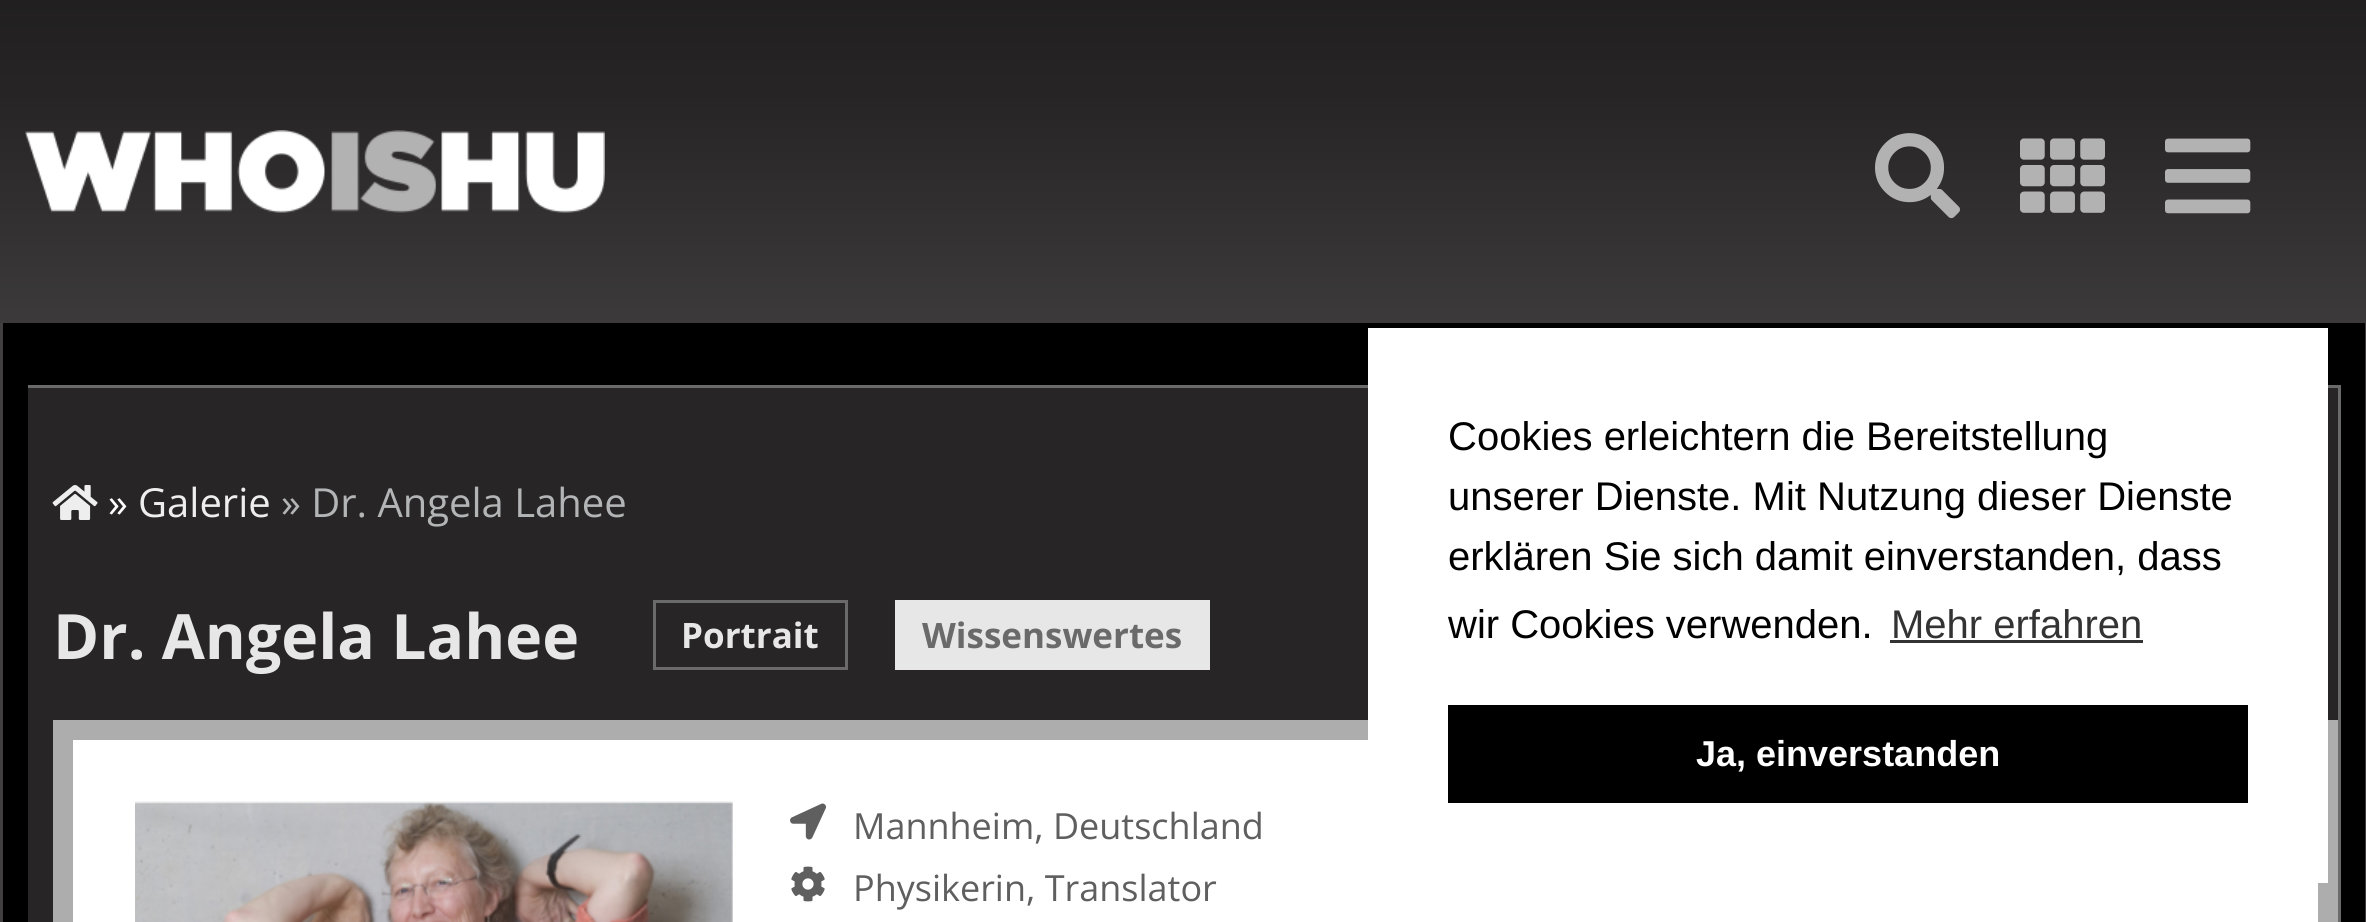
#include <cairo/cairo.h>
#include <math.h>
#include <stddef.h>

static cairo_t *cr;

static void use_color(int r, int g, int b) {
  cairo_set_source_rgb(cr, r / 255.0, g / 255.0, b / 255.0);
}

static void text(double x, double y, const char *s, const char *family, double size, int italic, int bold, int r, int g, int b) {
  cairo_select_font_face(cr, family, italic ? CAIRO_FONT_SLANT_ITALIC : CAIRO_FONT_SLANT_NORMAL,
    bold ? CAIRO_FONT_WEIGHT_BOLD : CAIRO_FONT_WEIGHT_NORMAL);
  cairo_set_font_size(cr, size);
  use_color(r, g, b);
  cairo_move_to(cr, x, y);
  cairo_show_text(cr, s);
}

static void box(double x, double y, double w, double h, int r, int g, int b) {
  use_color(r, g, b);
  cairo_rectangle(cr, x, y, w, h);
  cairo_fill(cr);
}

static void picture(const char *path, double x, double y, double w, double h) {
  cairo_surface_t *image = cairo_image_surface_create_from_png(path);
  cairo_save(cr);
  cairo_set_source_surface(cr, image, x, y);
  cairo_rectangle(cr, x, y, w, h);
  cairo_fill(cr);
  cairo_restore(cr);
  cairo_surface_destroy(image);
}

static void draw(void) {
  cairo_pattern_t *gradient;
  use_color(255, 255, 255);
  cairo_paint(cr);
  gradient = cairo_pattern_create_linear(1184, 0, 1184, 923);
  cairo_pattern_add_color_stop_rgba(gradient, 0, 0.129, 0.122, 0.125, 1);
  cairo_pattern_add_color_stop_rgba(gradient, 0.09, 0.149, 0.141, 0.145, 1);
  cairo_pattern_add_color_stop_rgba(gradient, 0.09, 0.024, 0.024, 0.024, 1);
  cairo_pattern_add_color_stop_rgba(gradient, 0.09, 0.255, 0.247, 0.251, 1);
  cairo_pattern_add_color_stop_rgba(gradient, 0.09, 0.192, 0.184, 0.188, 1);
  cairo_pattern_add_color_stop_rgba(gradient, 0.09, 0.149, 0.141, 0.145, 1);
  cairo_pattern_add_color_stop_rgba(gradient, 0.1, 0.149, 0.141, 0.145, 1);
  cairo_pattern_add_color_stop_rgba(gradient, 0.34, 0.231, 0.224, 0.227, 1);
  cairo_pattern_add_color_stop_rgba(gradient, 0.79, 0.431, 0.424, 0.427, 1);
  cairo_pattern_add_color_stop_rgba(gradient, 1, 0.506, 0.498, 0.502, 1);
  cairo_set_source(cr, gradient);
  cairo_pattern_destroy(gradient);
  cairo_rectangle(cr, 0, 0, 2366, 323);
  cairo_fill(cr);
  picture("img_01.png", 25, 130, 580, 83);
  picture("img_02.png", 1875, 133, 85, 86);
  picture("img_03.png", 2020, 138, 85, 75);
  picture("img_04.png", 2165, 138, 86, 76);
  box(3, 323, 2362, 599, 0, 0, 0);
  box(2365, 323, 1, 599, 65, 63, 64);
  box(0, 323, 3, 599, 65, 63, 64);
  box(28, 388, 2310, 534, 39, 37, 38);
  box(28, 385, 2312, 3, 106, 106, 106);
  box(2338, 385, 3, 537, 106, 106, 106);
  picture("img_05.png", 52, 485, 46, 35);
  cairo_rectangle(cr, 654.5, 601.5, 192, 67);
  cairo_set_line_width(cr, 3);
  cairo_stroke(cr);
  box(895, 600, 315, 70, 231, 231, 231);
  use_color(255, 255, 255);
  cairo_rectangle(cr, 63, 730, 2265, 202);
  cairo_fill_preserve(cr);
  use_color(173, 173, 173);
  cairo_set_line_width(cr, 20);
  cairo_stroke(cr);
  picture("img_06.png", 135, 801, 598, 121);
  picture("img_07.png", 790, 803, 36, 37);
  picture("img_08.png", 791, 866, 34, 36);
  box(1368, 328, 960, 555, 255, 255, 255);
  box(1890, 640, 253, 3, 51, 51, 51);
  box(1448, 705, 800, 98, 0, 0, 0);
  text(108, 517, "»", "Open Sans", 40, 0, 0, 255, 255, 255);
  text(138, 517, "Galerie", "Open Sans", 40, 0, 0, 238, 238, 238);
  text(281, 517, "» Dr. Angela Lahee", "Open Sans", 40, 0, 0, 178, 180, 181);
  text(53, 659, "Dr. Angela Lahee", "Open Sans", 62.5, 0, 1, 231, 231, 231);
  text(681, 648, "Portrait", "Open Sans", 35, 0, 1, 231, 231, 231);
  text(922, 648, "Wissenswertes", "Open Sans", 35, 0, 1, 106, 106, 106);
  text(853, 839, "Mannheim, Deutschland", "Open Sans", 36, 0, 0, 95, 95, 95);
  text(853, 901, "Physikerin, Translator", "Open Sans", 36, 0, 0, 95, 95, 95);
  text(1448, 450, "Cookies erleichtern die Bereitstellung", "Liberation Sans", 40, 0, 0, 0, 0, 0);
  text(1448, 510, "unserer Dienste. Mit Nutzung dieser Dienste", "Liberation Sans", 40, 0, 0, 0, 0, 0);
  text(1448, 570, "erklären Sie sich damit einverstanden, dass", "Liberation Sans", 40, 0, 0, 0, 0, 0);
  text(1448, 638, "wir Cookies verwenden.", "Liberation Sans", 40, 0, 0, 0, 0, 0);
  text(1891, 638, "Mehr erfahren", "Liberation Sans", 40, 0, 0, 51, 51, 51);
  text(1696, 766, "Ja, einverstanden", "Liberation Sans", 36, 0, 1, 255, 255, 255);
}

int main(void) {
  cairo_surface_t *surface = cairo_image_surface_create(CAIRO_FORMAT_RGB24, 2366, 922);
  cr = cairo_create(surface);
  cairo_font_options_t *options = cairo_font_options_create();
  cairo_font_options_set_hint_metrics(options, CAIRO_HINT_METRICS_OFF);
  cairo_font_options_set_hint_style(options, CAIRO_HINT_STYLE_NONE);
  cairo_set_font_options(cr, options);
  cairo_set_miter_limit(cr, 4);
  draw();
  cairo_surface_write_to_png(surface, "out.png");
  cairo_font_options_destroy(options);
  cairo_destroy(cr);
  cairo_surface_destroy(surface);
  return 0;
}
